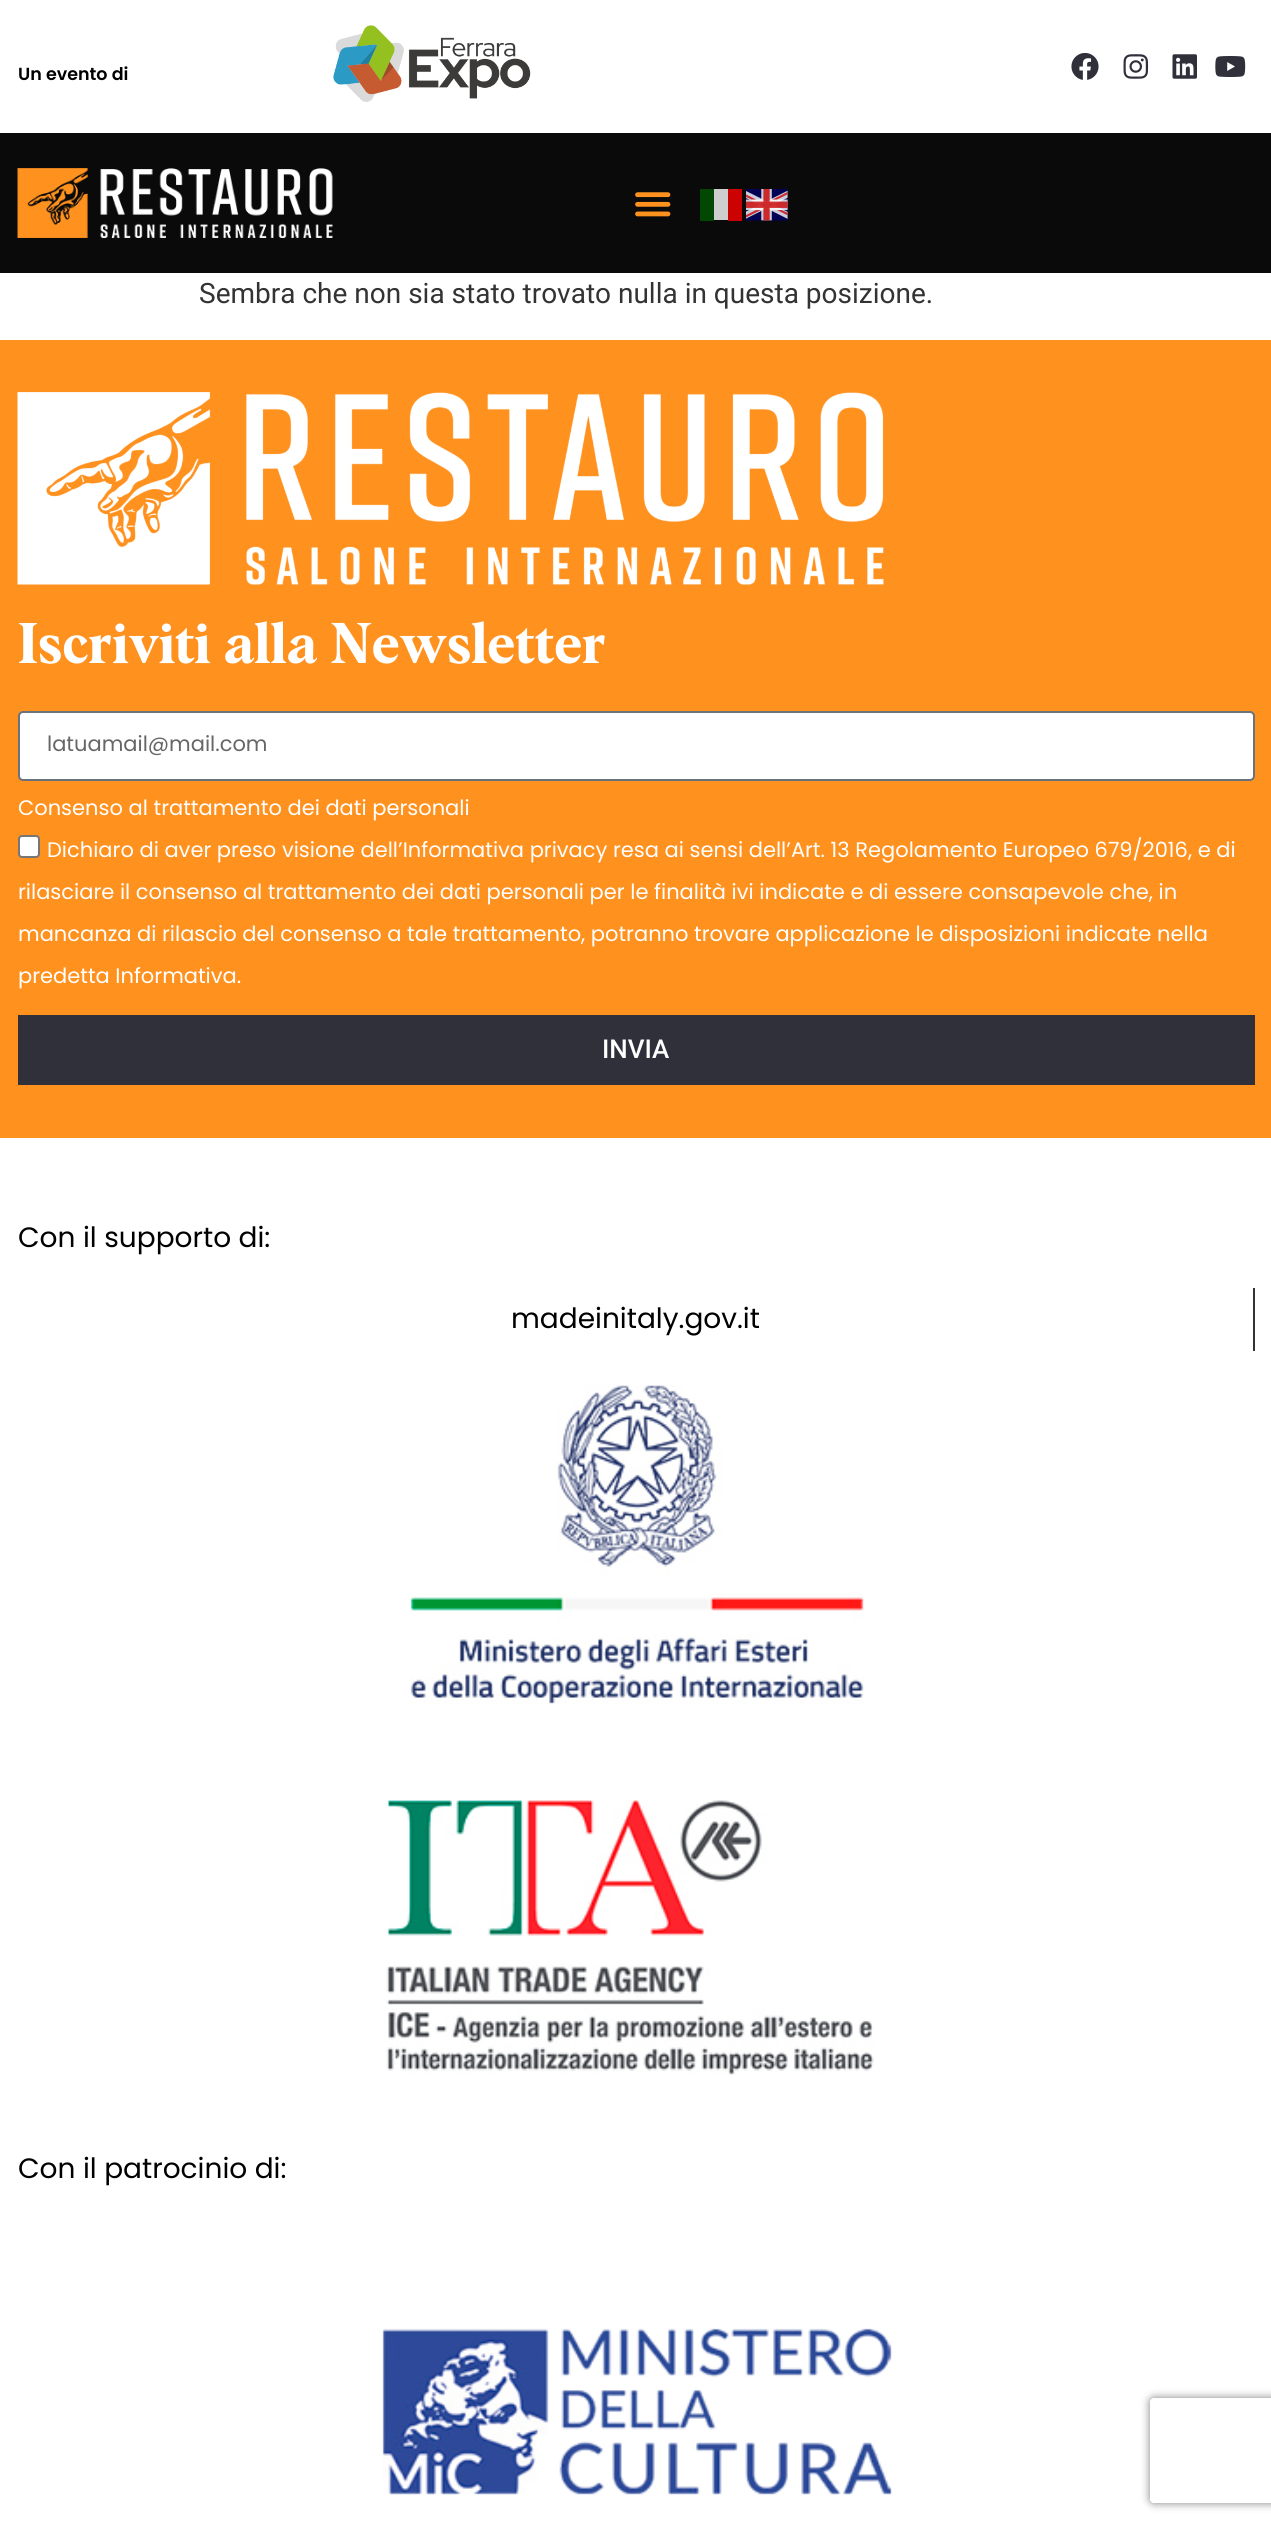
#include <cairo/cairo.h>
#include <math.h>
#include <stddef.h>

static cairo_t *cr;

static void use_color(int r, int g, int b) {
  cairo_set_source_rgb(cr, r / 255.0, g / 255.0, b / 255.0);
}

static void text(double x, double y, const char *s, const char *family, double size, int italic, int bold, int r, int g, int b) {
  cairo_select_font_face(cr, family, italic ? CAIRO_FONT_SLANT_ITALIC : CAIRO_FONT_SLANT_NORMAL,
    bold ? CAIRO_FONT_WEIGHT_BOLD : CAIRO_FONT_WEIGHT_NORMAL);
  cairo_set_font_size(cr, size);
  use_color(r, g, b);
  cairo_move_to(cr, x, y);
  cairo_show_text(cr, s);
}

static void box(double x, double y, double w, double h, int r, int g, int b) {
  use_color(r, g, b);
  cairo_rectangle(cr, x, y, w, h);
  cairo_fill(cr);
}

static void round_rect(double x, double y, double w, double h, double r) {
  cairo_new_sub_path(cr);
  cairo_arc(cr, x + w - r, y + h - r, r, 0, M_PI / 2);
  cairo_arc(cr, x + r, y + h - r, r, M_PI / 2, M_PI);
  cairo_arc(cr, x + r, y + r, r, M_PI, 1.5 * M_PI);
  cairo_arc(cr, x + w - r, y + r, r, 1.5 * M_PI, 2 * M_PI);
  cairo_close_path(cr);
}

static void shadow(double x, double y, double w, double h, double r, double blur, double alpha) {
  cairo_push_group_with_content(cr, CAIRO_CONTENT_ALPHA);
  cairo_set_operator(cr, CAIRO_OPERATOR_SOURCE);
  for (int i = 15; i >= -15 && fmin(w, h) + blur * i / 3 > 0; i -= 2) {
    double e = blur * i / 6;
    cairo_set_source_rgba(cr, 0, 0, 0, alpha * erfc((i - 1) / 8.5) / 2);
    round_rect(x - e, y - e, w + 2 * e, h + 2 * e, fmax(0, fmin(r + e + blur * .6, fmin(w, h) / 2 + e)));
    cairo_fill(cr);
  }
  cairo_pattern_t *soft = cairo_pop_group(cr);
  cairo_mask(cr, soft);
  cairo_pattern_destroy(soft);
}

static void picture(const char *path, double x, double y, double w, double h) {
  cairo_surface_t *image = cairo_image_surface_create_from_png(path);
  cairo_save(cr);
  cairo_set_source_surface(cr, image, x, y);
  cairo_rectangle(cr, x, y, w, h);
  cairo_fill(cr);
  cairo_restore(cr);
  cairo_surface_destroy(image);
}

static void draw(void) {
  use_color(255, 255, 255);
  cairo_paint(cr);
  picture("img_01.png", 333, 25, 198, 77);
  picture("img_02.png", 1071, 53, 28, 27);
  picture("img_03.png", 1123, 54, 26, 25);
  picture("img_04.png", 1172, 54, 25, 25);
  picture("img_05.png", 1215, 56, 31, 21);
  box(0, 133, 1271, 140, 10, 10, 10);
  picture("img_06.png", 17, 168, 316, 70);
  picture("img_07.png", 635, 192, 36, 25);
  box(700, 189, 14, 32, 2, 72, 2);
  box(714, 189, 14, 31, 206, 206, 206);
  box(728, 189, 14, 32, 204, 2, 2);
  picture("img_08.png", 746, 189, 42, 32);
  box(0, 340, 1271, 798, 255, 145, 31);
  picture("img_09.png", 17, 392, 867, 193);
  use_color(255, 255, 255);
  round_rect(19, 712, 1235, 68, 4);
  cairo_fill_preserve(cr);
  use_color(105, 114, 125);
  cairo_stroke(cr);
  use_color(255, 255, 255);
  round_rect(19, 836, 20, 21, 3);
  cairo_fill_preserve(cr);
  use_color(118, 118, 118);
  cairo_stroke(cr);
  box(18, 1015, 1237, 70, 48, 48, 59);
  cairo_save(cr);
  cairo_set_fill_rule(cr, CAIRO_FILL_RULE_EVEN_ODD);
  cairo_new_path(cr);
  cairo_move_to(cr, 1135, 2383);
  cairo_line_to(cr, 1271, 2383);
  cairo_line_to(cr, 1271, 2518);
  cairo_line_to(cr, 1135, 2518);
  cairo_close_path(cr);
  cairo_move_to(cr, 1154, 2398);
  cairo_line_to(cr, 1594, 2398);
  cairo_curve_to(cr, 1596, 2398, 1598, 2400, 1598, 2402);
  cairo_line_to(cr, 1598, 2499);
  cairo_curve_to(cr, 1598, 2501, 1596, 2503, 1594, 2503);
  cairo_line_to(cr, 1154, 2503);
  cairo_curve_to(cr, 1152, 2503, 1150, 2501, 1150, 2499);
  cairo_line_to(cr, 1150, 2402);
  cairo_curve_to(cr, 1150, 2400, 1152, 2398, 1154, 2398);
  cairo_close_path(cr);
  cairo_clip(cr);
  use_color(128, 128, 128);
  shadow(1150, 2398, 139, 105, 4, 4.5, 1);
  cairo_restore(cr);
  box(1253, 1288, 2, 63, 51, 51, 51);
  picture("img_10.png", 410, 1385, 454, 319);
  picture("img_11.png", 386, 1800, 488, 275);
  picture("img_12.png", 382, 2328, 510, 167);
  text(18, 80, "Un evento di", "Poppins SemiBold", 17.5, 0, 0, 0, 0, 0);
  text(199, 303, "Sembra che non sia stato trovato nulla in questa posizione.", "Roboto", 28, 0, 0, 51, 51, 51);
  text(18, 663, "Iscriviti alla Newsletter", "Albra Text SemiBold", 56, 0, 0, 255, 255, 255);
  text(47, 751, "latuamail@mail.com", "Poppins", 21, 0, 0, 102, 102, 102);
  text(18, 815, "Consenso al trattamento dei dati personali", "Poppins", 21, 0, 0, 255, 255, 255);
  text(47, 857, "Dichiaro di aver preso visione dell’Informativa privacy resa ai sensi dell’Art. 13 Regolamento Europeo 679/2016, e di", "Poppins", 21, 0, 0, 255, 255, 255);
  text(18, 899, "rilasciare il consenso al trattamento dei dati personali per le finalità ivi indicate e di essere consapevole che, in", "Poppins", 21, 0, 0, 255, 255, 255);
  text(18, 941, "mancanza di rilascio del consenso a tale trattamento, potranno trovare applicazione le disposizioni indicate nella", "Poppins", 21, 0, 0, 255, 255, 255);
  text(18, 983, "predetta Informativa.", "Poppins", 21, 0, 0, 255, 255, 255);
  text(602, 1058, "INVIA", "Roboto Medium", 26, 0, 0, 255, 255, 255);
  text(18, 1247, "Con il supporto di:", "Poppins", 28, 0, 0, 0, 0, 0);
  text(511, 1328, "madeinitaly.gov.it", "Poppins", 28, 0, 0, 0, 0, 0);
  text(18, 2178, "Con il patrocinio di:", "Poppins", 28, 0, 0, 0, 0, 0);
}

int main(void) {
  cairo_surface_t *surface = cairo_image_surface_create(CAIRO_FORMAT_RGB24, 1271, 2527);
  cr = cairo_create(surface);
  cairo_font_options_t *options = cairo_font_options_create();
  cairo_font_options_set_hint_metrics(options, CAIRO_HINT_METRICS_OFF);
  cairo_font_options_set_hint_style(options, CAIRO_HINT_STYLE_NONE);
  cairo_set_font_options(cr, options);
  cairo_set_miter_limit(cr, 4);
  draw();
  cairo_surface_write_to_png(surface, "out.png");
  cairo_font_options_destroy(options);
  cairo_destroy(cr);
  cairo_surface_destroy(surface);
  return 0;
}
